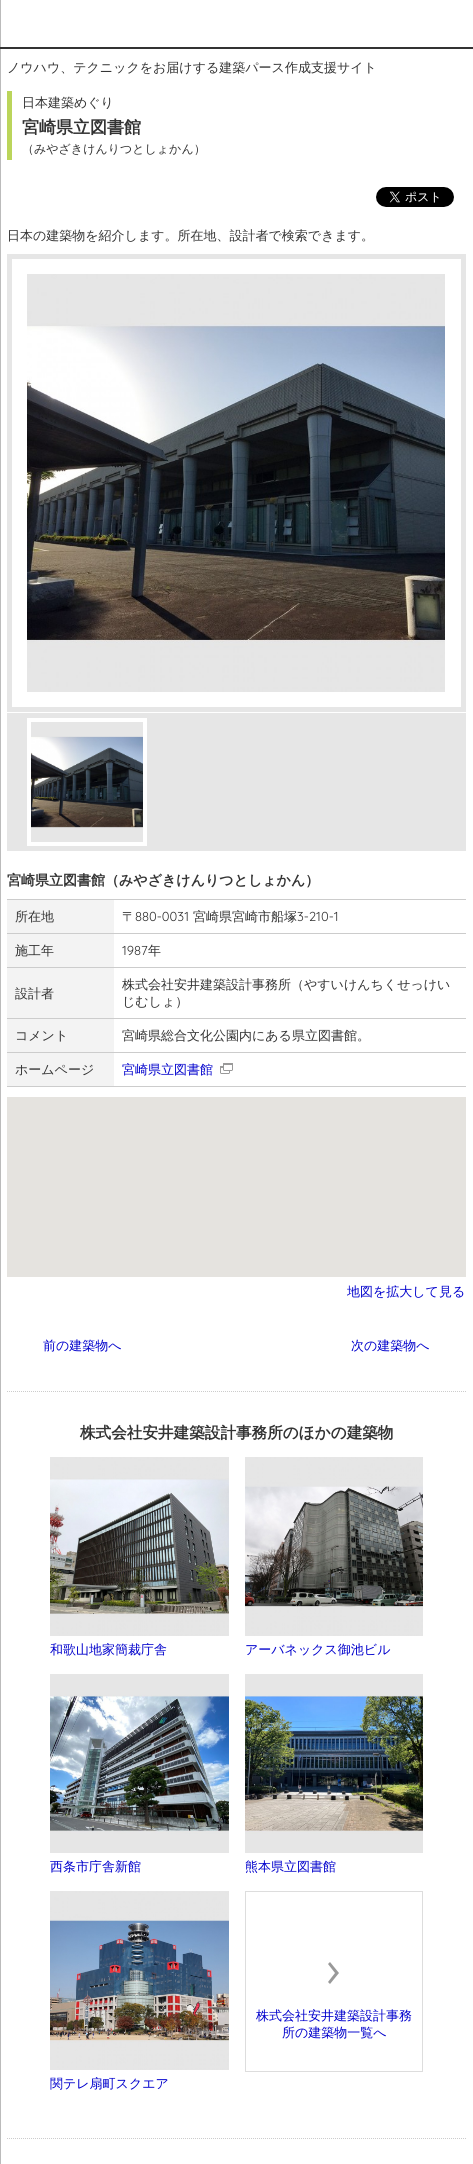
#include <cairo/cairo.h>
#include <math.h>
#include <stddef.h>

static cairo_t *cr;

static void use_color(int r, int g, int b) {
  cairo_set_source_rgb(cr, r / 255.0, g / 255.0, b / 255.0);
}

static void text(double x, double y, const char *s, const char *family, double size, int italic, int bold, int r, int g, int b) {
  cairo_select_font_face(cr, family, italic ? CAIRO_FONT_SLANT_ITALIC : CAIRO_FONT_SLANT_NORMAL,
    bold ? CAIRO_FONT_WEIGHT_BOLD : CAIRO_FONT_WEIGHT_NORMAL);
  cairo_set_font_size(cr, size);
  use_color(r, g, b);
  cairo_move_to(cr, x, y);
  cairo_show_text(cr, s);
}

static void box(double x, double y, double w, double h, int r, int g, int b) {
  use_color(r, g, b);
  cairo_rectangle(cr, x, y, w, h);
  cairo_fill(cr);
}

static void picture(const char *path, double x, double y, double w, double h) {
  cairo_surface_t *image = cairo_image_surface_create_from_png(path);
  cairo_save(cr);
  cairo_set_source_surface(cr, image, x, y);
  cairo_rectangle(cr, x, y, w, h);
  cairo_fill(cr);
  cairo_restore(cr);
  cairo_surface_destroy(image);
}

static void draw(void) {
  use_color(255, 255, 255);
  cairo_paint(cr);
  box(0, 0, 1, 2164, 187, 187, 187);
  box(0, 47, 473, 2, 51, 51, 51);
  box(7, 91, 5, 69, 187, 213, 91);
  picture("img_01.png", 376, 187, 78, 20);
  cairo_rectangle(cr, 9.5, 256.5, 454, 453);
  use_color(230, 230, 230);
  cairo_set_line_width(cr, 5);
  cairo_stroke(cr);
  picture("img_02.png", 27, 274, 418, 418);
  box(7, 713, 459, 138, 230, 230, 230);
  cairo_rectangle(cr, 29, 720, 116, 124);
  use_color(255, 255, 255);
  cairo_set_line_width(cr, 4);
  cairo_stroke(cr);
  picture("img_03.png", 31, 736, 112, 92);
  box(7, 899, 459, 1, 204, 204, 204);
  box(7, 900, 107, 33, 243, 243, 243);
  box(7, 934, 107, 33, 243, 243, 243);
  box(7, 933, 459, 1, 204, 204, 204);
  box(7, 968, 107, 50, 243, 243, 243);
  box(7, 967, 459, 1, 204, 204, 204);
  box(7, 1019, 107, 33, 243, 243, 243);
  box(7, 1018, 459, 1, 204, 204, 204);
  box(7, 1053, 107, 33, 243, 243, 243);
  box(7, 1052, 459, 1, 204, 204, 204);
  box(7, 1086, 459, 1, 204, 204, 204);
  picture("img_04.png", 220, 1063, 13, 11);
  box(7, 1097, 459, 180, 229, 227, 223);
  cairo_new_path(cr);
  cairo_move_to(cr, 7, 1391.5);
  cairo_line_to(cr, 466, 1391.5);
  use_color(204, 204, 204);
  cairo_set_line_width(cr, 1);
  cairo_set_dash(cr, (double[]){1, 1}, 2, 0);
  cairo_stroke(cr);
  picture("img_05.png", 50, 1457, 179, 179);
  picture("img_06.png", 245, 1457, 178, 179);
  picture("img_07.png", 50, 1674, 179, 179);
  picture("img_08.png", 245, 1674, 178, 179);
  picture("img_09.png", 328, 1962, 11, 22);
  cairo_rectangle(cr, 245.5, 1891.5, 177, 180);
  use_color(221, 221, 221);
  cairo_set_dash(cr, NULL, 0, 0);
  cairo_stroke(cr);
  picture("img_10.png", 50, 1891, 179, 179);
  cairo_new_path(cr);
  cairo_move_to(cr, 7, 2138.5);
  cairo_line_to(cr, 466, 2138.5);
  use_color(204, 204, 204);
  cairo_set_dash(cr, (double[]){1, 1}, 2, 0);
  cairo_stroke(cr);
  text(7, 72, "ノウハウ、テクニックをお届けする建築パース作成支援サイト", "WenQuanYi Zen Hei Medium", 13, 0, 0, 51, 51, 51);
  text(22, 107, "日本建築めぐり", "WenQuanYi Zen Hei Medium", 13, 0, 0, 51, 51, 51);
  text(22, 133, "宮崎県立図書館", "WenQuanYi Zen Hei", 17, 0, 1, 51, 51, 51);
  text(22, 153, "（みやざきけんりつとしょかん）", "WenQuanYi Zen Hei Medium", 12, 0, 0, 51, 51, 51);
  text(7, 240, "日本の建築物を紹介します。所在地、設計者で検索できます。", "WenQuanYi Zen Hei Medium", 13, 0, 0, 51, 51, 51);
  text(7, 885, "宮崎県立図書館（みやざきけんりつとしょかん）", "WenQuanYi Zen Hei", 14, 0, 1, 51, 51, 51);
  text(15, 921, "所在地", "WenQuanYi Zen Hei Medium", 13, 0, 0, 51, 51, 51);
  text(122, 921, "〒", "WenQuanYi Zen Hei Medium", 13, 0, 0, 51, 51, 51);
  text(135, 921, "880-0031", "Quicksand", 13, 0, 0, 51, 51, 51);
  text(193, 921, "宮崎県宮崎市船塚", "WenQuanYi Zen Hei Medium", 13, 0, 0, 51, 51, 51);
  text(297, 921, "3-210-1", "Quicksand", 13, 0, 0, 51, 51, 51);
  text(15, 955, "施工年", "WenQuanYi Zen Hei Medium", 13, 0, 0, 51, 51, 51);
  text(122, 955, "1987", "Quicksand", 13, 0, 0, 51, 51, 51);
  text(148, 955, "年", "WenQuanYi Zen Hei Medium", 13, 0, 0, 51, 51, 51);
  text(15, 998, "設計者", "WenQuanYi Zen Hei Medium", 13, 0, 0, 51, 51, 51);
  text(122, 989, "株式会社安井建築設計事務所（やすいけんちくせっけい", "WenQuanYi Zen Hei Medium", 13, 0, 0, 51, 51, 51);
  text(122, 1006, "じむしょ）", "WenQuanYi Zen Hei Medium", 13, 0, 0, 51, 51, 51);
  text(15, 1040, "コメント", "WenQuanYi Zen Hei Medium", 13, 0, 0, 51, 51, 51);
  text(122, 1040, "宮崎県総合文化公園内にある県立図書館。", "WenQuanYi Zen Hei Medium", 13, 0, 0, 51, 51, 51);
  text(15, 1074, "ホームページ", "WenQuanYi Zen Hei Medium", 13, 0, 0, 51, 51, 51);
  text(122, 1074, "宮崎県立図書館", "WenQuanYi Zen Hei Medium", 13, 0, 0, 0, 0, 204);
  text(347, 1296, "地図を拡大して見る", "WenQuanYi Zen Hei Medium", 13, 0, 0, 0, 0, 204);
  text(43, 1350, "前の建築物へ", "WenQuanYi Zen Hei Medium", 13, 0, 0, 0, 0, 204);
  text(351, 1350, "次の建築物へ", "WenQuanYi Zen Hei Medium", 13, 0, 0, 0, 0, 204);
  text(80, 1438, "株式会社安井建築設計事務所のほかの建築物", "WenQuanYi Zen Hei", 15.6, 0, 1, 51, 51, 51);
  text(50, 1654, "和歌山地家簡裁庁舎", "WenQuanYi Zen Hei Medium", 13, 0, 0, 0, 0, 204);
  text(245, 1654, "アーバネックス御池ビル", "WenQuanYi Zen Hei Medium", 13, 0, 0, 0, 0, 204);
  text(50, 1871, "西条市庁舎新館", "WenQuanYi Zen Hei Medium", 13, 0, 0, 0, 0, 204);
  text(245, 1871, "熊本県立図書館", "WenQuanYi Zen Hei Medium", 13, 0, 0, 0, 0, 204);
  text(256, 2020, "株式会社安井建築設計事務", "WenQuanYi Zen Hei Medium", 13, 0, 0, 0, 0, 204);
  text(282, 2037, "所の建築物一覧へ", "WenQuanYi Zen Hei Medium", 13, 0, 0, 0, 0, 204);
  text(50, 2088, "関テレ扇町スクエア", "WenQuanYi Zen Hei Medium", 13, 0, 0, 0, 0, 204);
}

int main(void) {
  cairo_surface_t *surface = cairo_image_surface_create(CAIRO_FORMAT_RGB24, 473, 2164);
  cr = cairo_create(surface);
  cairo_font_options_t *options = cairo_font_options_create();
  cairo_font_options_set_hint_metrics(options, CAIRO_HINT_METRICS_OFF);
  cairo_font_options_set_hint_style(options, CAIRO_HINT_STYLE_NONE);
  cairo_set_font_options(cr, options);
  cairo_set_miter_limit(cr, 4);
  draw();
  cairo_surface_write_to_png(surface, "out.png");
  cairo_font_options_destroy(options);
  cairo_destroy(cr);
  cairo_surface_destroy(surface);
  return 0;
}
